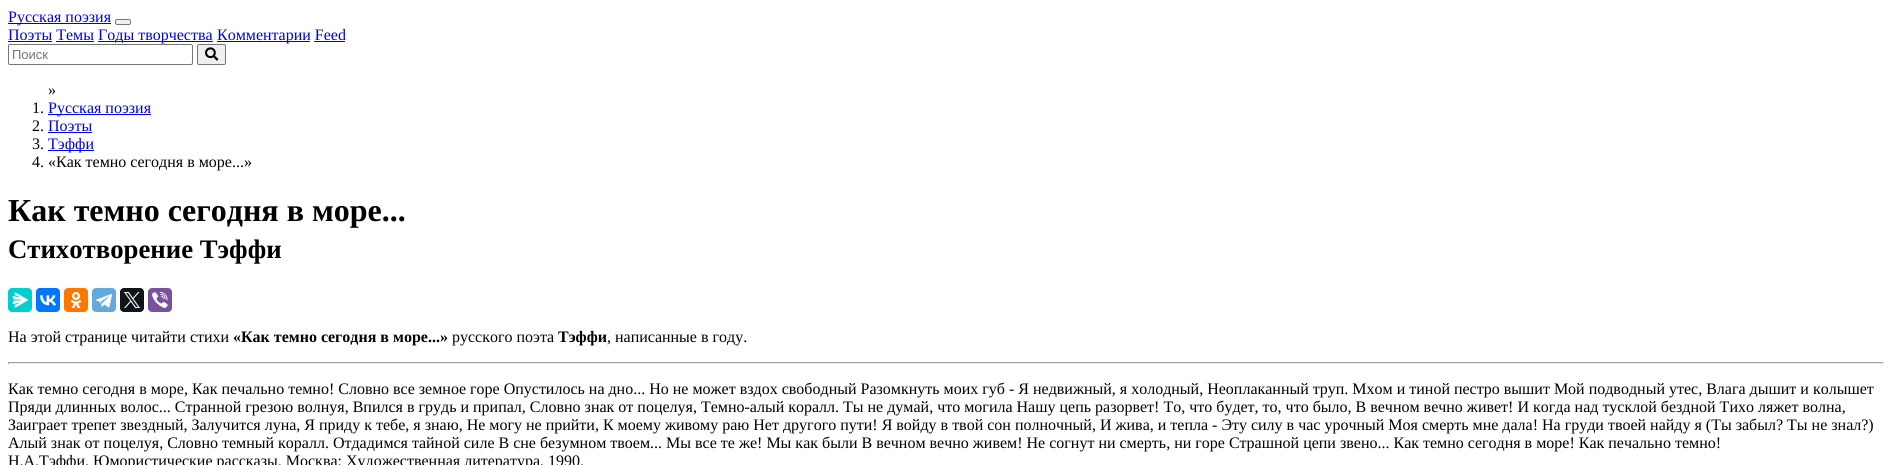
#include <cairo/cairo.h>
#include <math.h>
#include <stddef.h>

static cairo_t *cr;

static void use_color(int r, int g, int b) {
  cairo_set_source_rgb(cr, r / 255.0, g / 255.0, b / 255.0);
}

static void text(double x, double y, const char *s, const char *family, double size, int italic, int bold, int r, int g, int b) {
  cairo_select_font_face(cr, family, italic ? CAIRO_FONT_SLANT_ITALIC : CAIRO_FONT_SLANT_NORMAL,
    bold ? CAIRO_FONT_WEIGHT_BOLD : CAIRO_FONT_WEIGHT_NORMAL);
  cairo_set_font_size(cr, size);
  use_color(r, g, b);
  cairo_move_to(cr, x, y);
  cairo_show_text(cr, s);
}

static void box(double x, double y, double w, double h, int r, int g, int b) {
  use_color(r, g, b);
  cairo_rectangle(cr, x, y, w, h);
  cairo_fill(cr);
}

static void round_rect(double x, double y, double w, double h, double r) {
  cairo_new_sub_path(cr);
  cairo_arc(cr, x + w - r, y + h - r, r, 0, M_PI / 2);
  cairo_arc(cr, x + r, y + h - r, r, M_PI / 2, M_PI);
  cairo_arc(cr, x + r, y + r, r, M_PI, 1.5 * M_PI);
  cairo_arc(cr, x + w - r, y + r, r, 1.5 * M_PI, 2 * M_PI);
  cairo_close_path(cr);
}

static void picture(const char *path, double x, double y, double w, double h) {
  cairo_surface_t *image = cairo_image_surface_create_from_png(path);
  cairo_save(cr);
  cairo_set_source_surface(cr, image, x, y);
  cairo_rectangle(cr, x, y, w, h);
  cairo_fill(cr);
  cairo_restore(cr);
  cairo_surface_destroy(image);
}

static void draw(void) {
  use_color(255, 255, 255);
  cairo_paint(cr);
  box(8, 23, 103, 1, 0, 0, 238);
  use_color(239, 239, 239);
  round_rect(115.5, 19.5, 15, 5, 1.5);
  cairo_fill_preserve(cr);
  use_color(118, 118, 118);
  cairo_set_line_width(cr, 1);
  cairo_stroke(cr);
  box(8, 41, 44, 1, 0, 0, 238);
  box(98, 41, 115, 1, 0, 0, 238);
  box(217, 41, 93, 1, 0, 0, 238);
  box(56, 41, 38, 1, 0, 0, 238);
  box(314, 41, 31, 1, 0, 0, 238);
  round_rect(8.5, 44.5, 184, 20, 1.5);
  use_color(118, 118, 118);
  cairo_stroke(cr);
  use_color(239, 239, 239);
  round_rect(197.5, 44.5, 28, 20, 1.5);
  cairo_fill_preserve(cr);
  use_color(118, 118, 118);
  cairo_stroke(cr);
  picture("img_01.png", 205, 47, 14, 14);
  box(48, 114, 103, 1, 0, 0, 238);
  box(48, 132, 44, 1, 0, 0, 238);
  box(48, 150, 46, 1, 0, 0, 238);
  use_color(3, 206, 206);
  round_rect(8, 288, 24, 24, 4);
  cairo_fill(cr);
  picture("img_02.png", 12, 292, 16, 16);
  use_color(0, 119, 255);
  round_rect(36, 288, 24, 24, 4);
  cairo_fill(cr);
  picture("img_03.png", 40, 295, 16, 11);
  use_color(255, 119, 0);
  round_rect(64, 288, 24, 24, 4);
  cairo_fill(cr);
  picture("img_04.png", 70, 292, 12, 16);
  use_color(100, 169, 220);
  round_rect(92, 288, 24, 24, 4);
  cairo_fill(cr);
  picture("img_05.png", 96, 294, 16, 14);
  use_color(15, 20, 25);
  round_rect(120, 288, 24, 24, 4);
  cairo_fill(cr);
  picture("img_06.png", 124, 292, 16, 16);
  use_color(123, 81, 157);
  round_rect(148, 288, 24, 24, 4);
  cairo_fill(cr);
  picture("img_07.png", 152, 292, 16, 16);
  box(8, 362, 1876, 1, 159, 159, 159);
  box(1883, 362, 1, 2, 238, 238, 238);
  box(8, 363, 1876, 1, 238, 238, 238);
  box(8, 362, 1, 2, 159, 159, 159);
  text(8, 22, "Русская поэзия", "Liberation Serif", 16, 0, 0, 0, 0, 238);
  text(8, 40, "Поэты Темы", "Liberation Serif", 16, 0, 0, 0, 0, 238);
  text(98, 40, "Годы творчества", "Liberation Serif", 16, 0, 0, 0, 0, 238);
  text(217, 40, "Комментарии Feed", "Liberation Serif", 16, 0, 0, 0, 0, 238);
  text(12, 59, "Поиск", "Liberation Sans", 13, 0, 0, 117, 117, 117);
  text(48, 95, "»", "Liberation Serif", 16, 0, 0, 0, 0, 0);
  text(32, 113, "1.", "Liberation Serif", 16, 0, 0, 0, 0, 0);
  text(48, 113, "Русская поэзия", "Liberation Serif", 16, 0, 0, 0, 0, 238);
  text(32, 131, "2.", "Liberation Serif", 16, 0, 0, 0, 0, 0);
  text(48, 131, "Поэты", "Liberation Serif", 16, 0, 0, 0, 0, 238);
  text(32, 149, "3.", "Liberation Serif", 16, 0, 0, 0, 0, 0);
  text(48, 149, "Тэффи", "Liberation Serif", 16, 0, 0, 0, 0, 238);
  text(32, 167, "4. «Как темно сегодня в море...»", "Liberation Serif", 16, 0, 0, 0, 0, 0);
  text(8, 221, "Как темно сегодня в море...", "Liberation Serif", 32, 0, 1, 0, 0, 0);
  text(8, 258, "Стихотворение Тэффи", "Liberation Serif", 26.75, 0, 1, 0, 0, 0);
  text(8, 342, "На этой странице читайти стихи", "Liberation Serif", 16, 0, 0, 0, 0, 0);
  text(233, 342, "«Как темно сегодня в море...»", "Liberation Serif", 16, 0, 1, 0, 0, 0);
  text(452, 342, "русского поэта", "Liberation Serif", 16, 0, 0, 0, 0, 0);
  text(558, 342, "Тэффи", "Liberation Serif", 16, 0, 1, 0, 0, 0);
  text(607, 342, ", написанные в году.", "Liberation Serif", 16, 0, 0, 0, 0, 0);
  text(8, 394, "Как темно сегодня в море, Как печально темно! Словно все земное горе Опустилось на дно... Но не может вздох свободный Разомкнуть моих губ - Я недвижный, я холодный, Неоплаканный труп. Мхом и тиной пестро вышит Мой подводный утес, Влага дышит и колышет", "Liberation Serif", 16, 0, 0, 0, 0, 0);
  text(8, 412, "Пряди длинных волос... Странной грезою волнуя, Впился в грудь и припал, Словно знак от поцелуя, Темно-алый коралл. Ты не думай, что могила Нашу цепь разорвет! То, что будет, то, что было, В вечном вечно живет! И когда над тусклой бездной Тихо ляжет волна,", "Liberation Serif", 16, 0, 0, 0, 0, 0);
  text(8, 430, "Заиграет трепет звездный, Залучится луна, Я приду к тебе, я знаю, Не могу не прийти, К моему живому раю Нет другого пути! Я войду в твой сон полночный, И жива, и тепла - Эту силу в час урочный Моя смерть мне дала! На груди твоей найду я (Ты забыл? Ты не знал?)", "Liberation Serif", 16, 0, 0, 0, 0, 0);
  text(8, 448, "Алый знак от поцелуя, Словно темный коралл. Отдадимся тайной силе В сне безумном твоем... Мы все те же! Мы как были В вечном вечно живем! Не согнут ни смерть, ни горе Страшной цепи звено... Как темно сегодня в море! Как печально темно!", "Liberation Serif", 16, 0, 0, 0, 0, 0);
  text(8, 466, "Н.А.Тэффи. Юмористические рассказы. Москва: Художественная литература, 1990.", "Liberation Serif", 16, 0, 0, 0, 0, 0);
}

int main(void) {
  cairo_surface_t *surface = cairo_image_surface_create(CAIRO_FORMAT_RGB24, 1892, 465);
  cr = cairo_create(surface);
  cairo_font_options_t *options = cairo_font_options_create();
  cairo_font_options_set_hint_metrics(options, CAIRO_HINT_METRICS_OFF);
  cairo_font_options_set_hint_style(options, CAIRO_HINT_STYLE_NONE);
  cairo_set_font_options(cr, options);
  cairo_set_miter_limit(cr, 4);
  draw();
  cairo_surface_write_to_png(surface, "out.png");
  cairo_font_options_destroy(options);
  cairo_destroy(cr);
  cairo_surface_destroy(surface);
  return 0;
}
